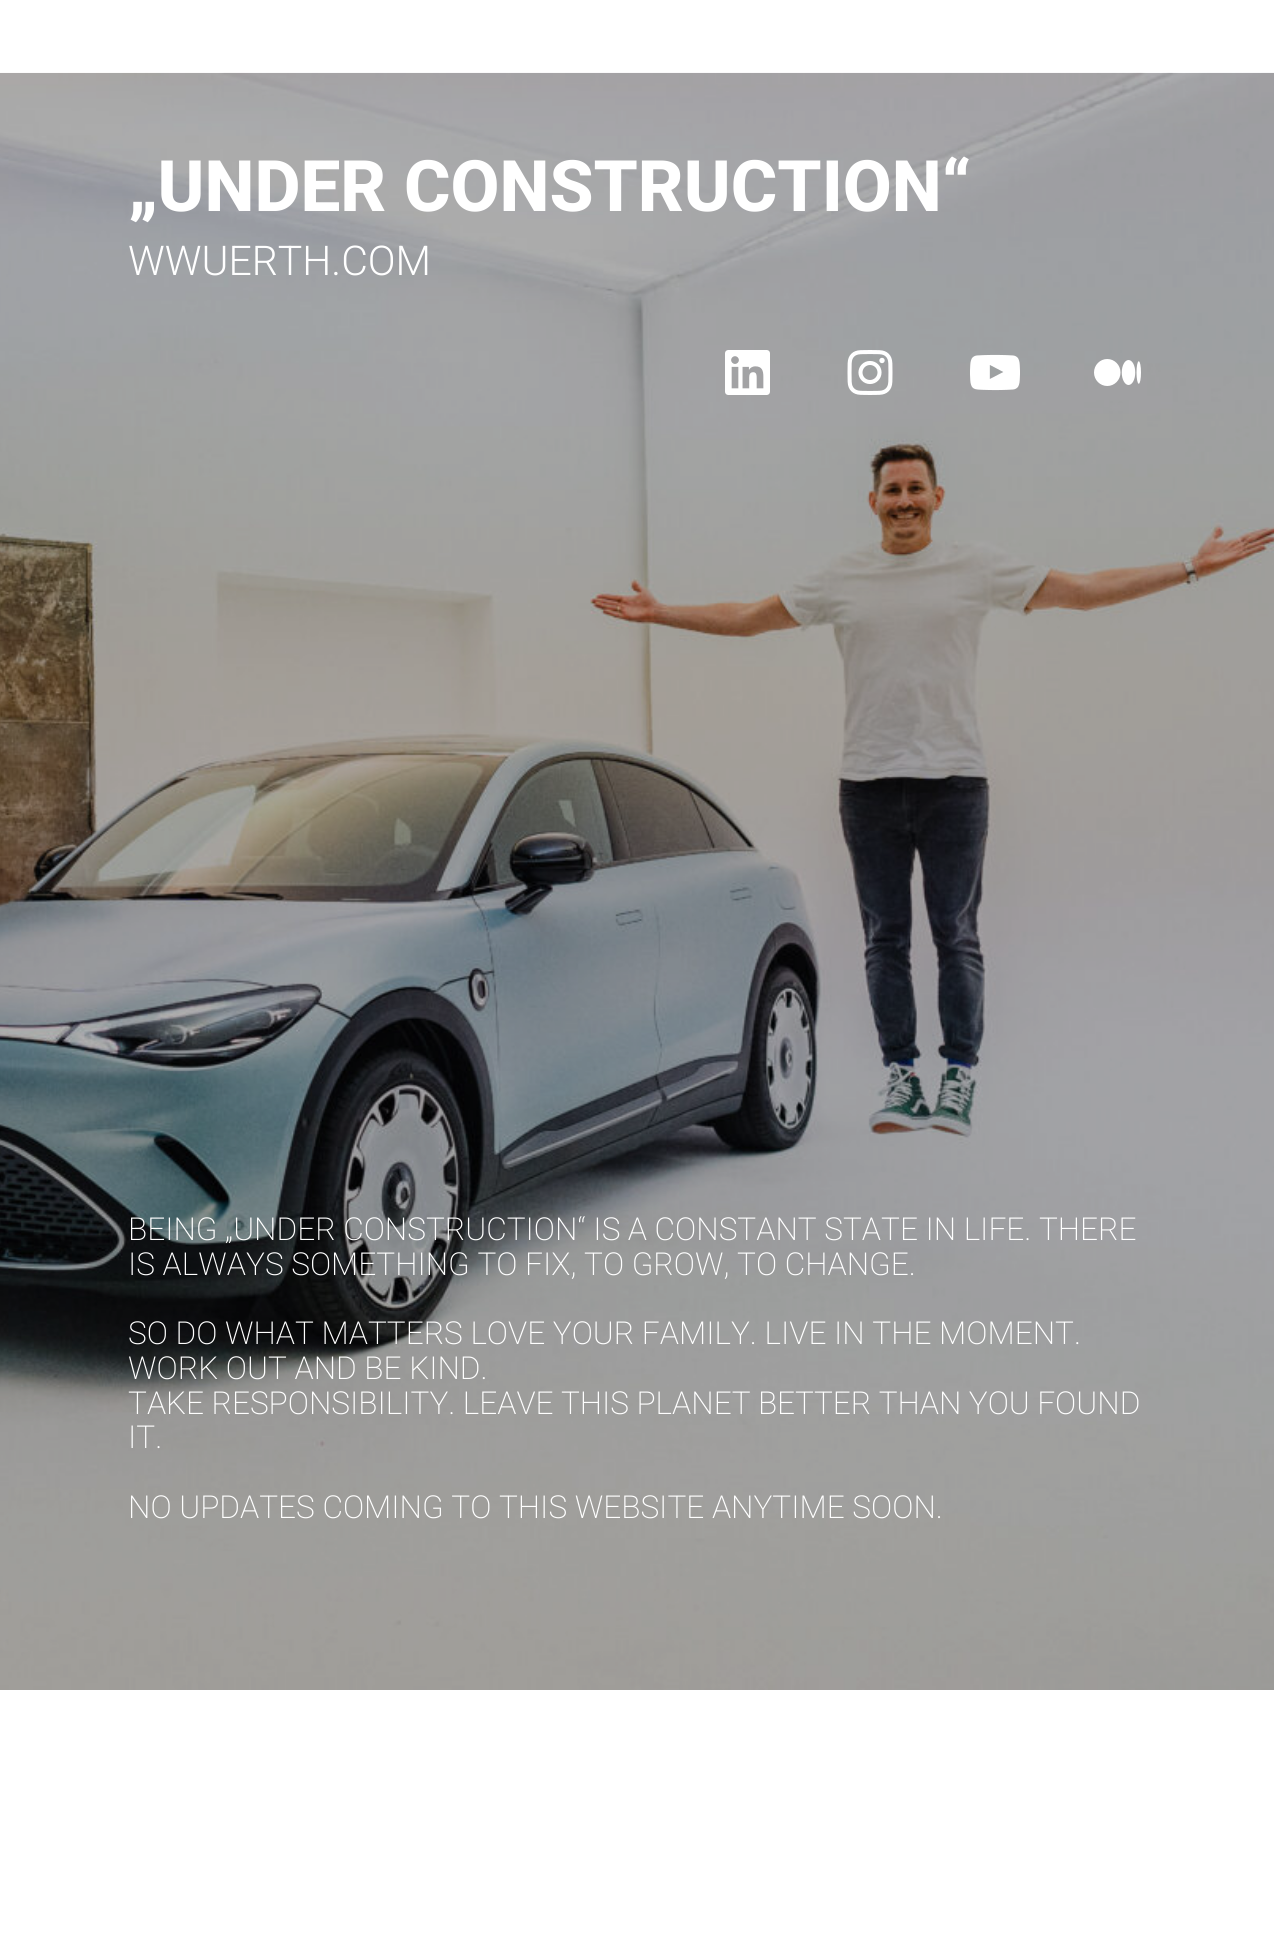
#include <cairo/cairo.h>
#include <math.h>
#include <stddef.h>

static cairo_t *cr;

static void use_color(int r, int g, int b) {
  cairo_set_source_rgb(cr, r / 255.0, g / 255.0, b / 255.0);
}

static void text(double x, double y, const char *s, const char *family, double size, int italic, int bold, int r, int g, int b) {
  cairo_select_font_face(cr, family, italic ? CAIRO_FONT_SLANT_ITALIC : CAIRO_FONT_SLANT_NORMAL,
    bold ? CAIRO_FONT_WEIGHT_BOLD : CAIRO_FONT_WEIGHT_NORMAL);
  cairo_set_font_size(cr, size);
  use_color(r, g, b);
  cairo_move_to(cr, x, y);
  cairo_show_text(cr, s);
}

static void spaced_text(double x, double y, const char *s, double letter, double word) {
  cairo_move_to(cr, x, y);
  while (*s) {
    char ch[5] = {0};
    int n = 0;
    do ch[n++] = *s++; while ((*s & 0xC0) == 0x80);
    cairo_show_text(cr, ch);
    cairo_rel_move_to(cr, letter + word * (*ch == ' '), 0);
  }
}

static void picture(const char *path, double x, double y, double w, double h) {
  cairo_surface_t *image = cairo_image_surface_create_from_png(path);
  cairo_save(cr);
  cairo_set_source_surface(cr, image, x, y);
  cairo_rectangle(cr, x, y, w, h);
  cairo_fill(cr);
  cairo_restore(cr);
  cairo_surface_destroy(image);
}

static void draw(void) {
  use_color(255, 255, 255);
  cairo_paint(cr);
  picture("img_01.png", 0, 72, 1274, 1618);
  picture("img_02.png", 725, 350, 45, 45);
  picture("img_03.png", 847, 350, 46, 45);
  picture("img_04.png", 970, 354, 50, 37);
  picture("img_05.png", 1094, 359, 47, 27);
  text(128, 211, "„UNDER CONSTRUCTION“", "Roboto ExtraBold", 71, 0, 0, 255, 255, 255);
  text(128, 275, "WWUERTH.COM", "Roboto Light", 41, 0, 0, 255, 255, 255);
  cairo_select_font_face(cr, "Roboto ExtraLight", CAIRO_FONT_SLANT_NORMAL, CAIRO_FONT_WEIGHT_NORMAL);
  cairo_set_font_size(cr, 31.6);
  spaced_text(128, 1240, "BEING „UNDER CONSTRUCTION“ IS A CONSTANT STATE IN LIFE. THERE", 0, -0.1);
  text(128, 1275, "IS ALWAYS SOMETHING TO FIX, TO GROW, TO CHANGE.", "Roboto ExtraLight", 31.6, 0, 0, 255, 255, 255);
  text(128, 1344, "SO DO WHAT MATTERS LOVE YOUR FAMILY. LIVE IN THE MOMENT.", "Roboto ExtraLight", 31.6, 0, 0, 255, 255, 255);
  text(128, 1379, "WORK OUT AND BE KIND.", "Roboto ExtraLight", 31.6, 0, 0, 255, 255, 255);
  spaced_text(128, 1414, "TAKE RESPONSIBILITY. LEAVE THIS PLANET BETTER THAN YOU FOUND", 0, -0.25);
  text(128, 1448, "IT.", "Roboto ExtraLight", 31.6, 0, 0, 255, 255, 255);
  text(128, 1518, "NO UPDATES COMING TO THIS WEBSITE ANYTIME SOON.", "Roboto ExtraLight", 31.6, 0, 0, 255, 255, 255);
}

int main(void) {
  cairo_surface_t *surface = cairo_image_surface_create(CAIRO_FORMAT_RGB24, 1274, 1951);
  cr = cairo_create(surface);
  cairo_font_options_t *options = cairo_font_options_create();
  cairo_font_options_set_hint_metrics(options, CAIRO_HINT_METRICS_OFF);
  cairo_font_options_set_hint_style(options, CAIRO_HINT_STYLE_NONE);
  cairo_set_font_options(cr, options);
  cairo_set_miter_limit(cr, 4);
  draw();
  cairo_surface_write_to_png(surface, "out.png");
  cairo_font_options_destroy(options);
  cairo_destroy(cr);
  cairo_surface_destroy(surface);
  return 0;
}
